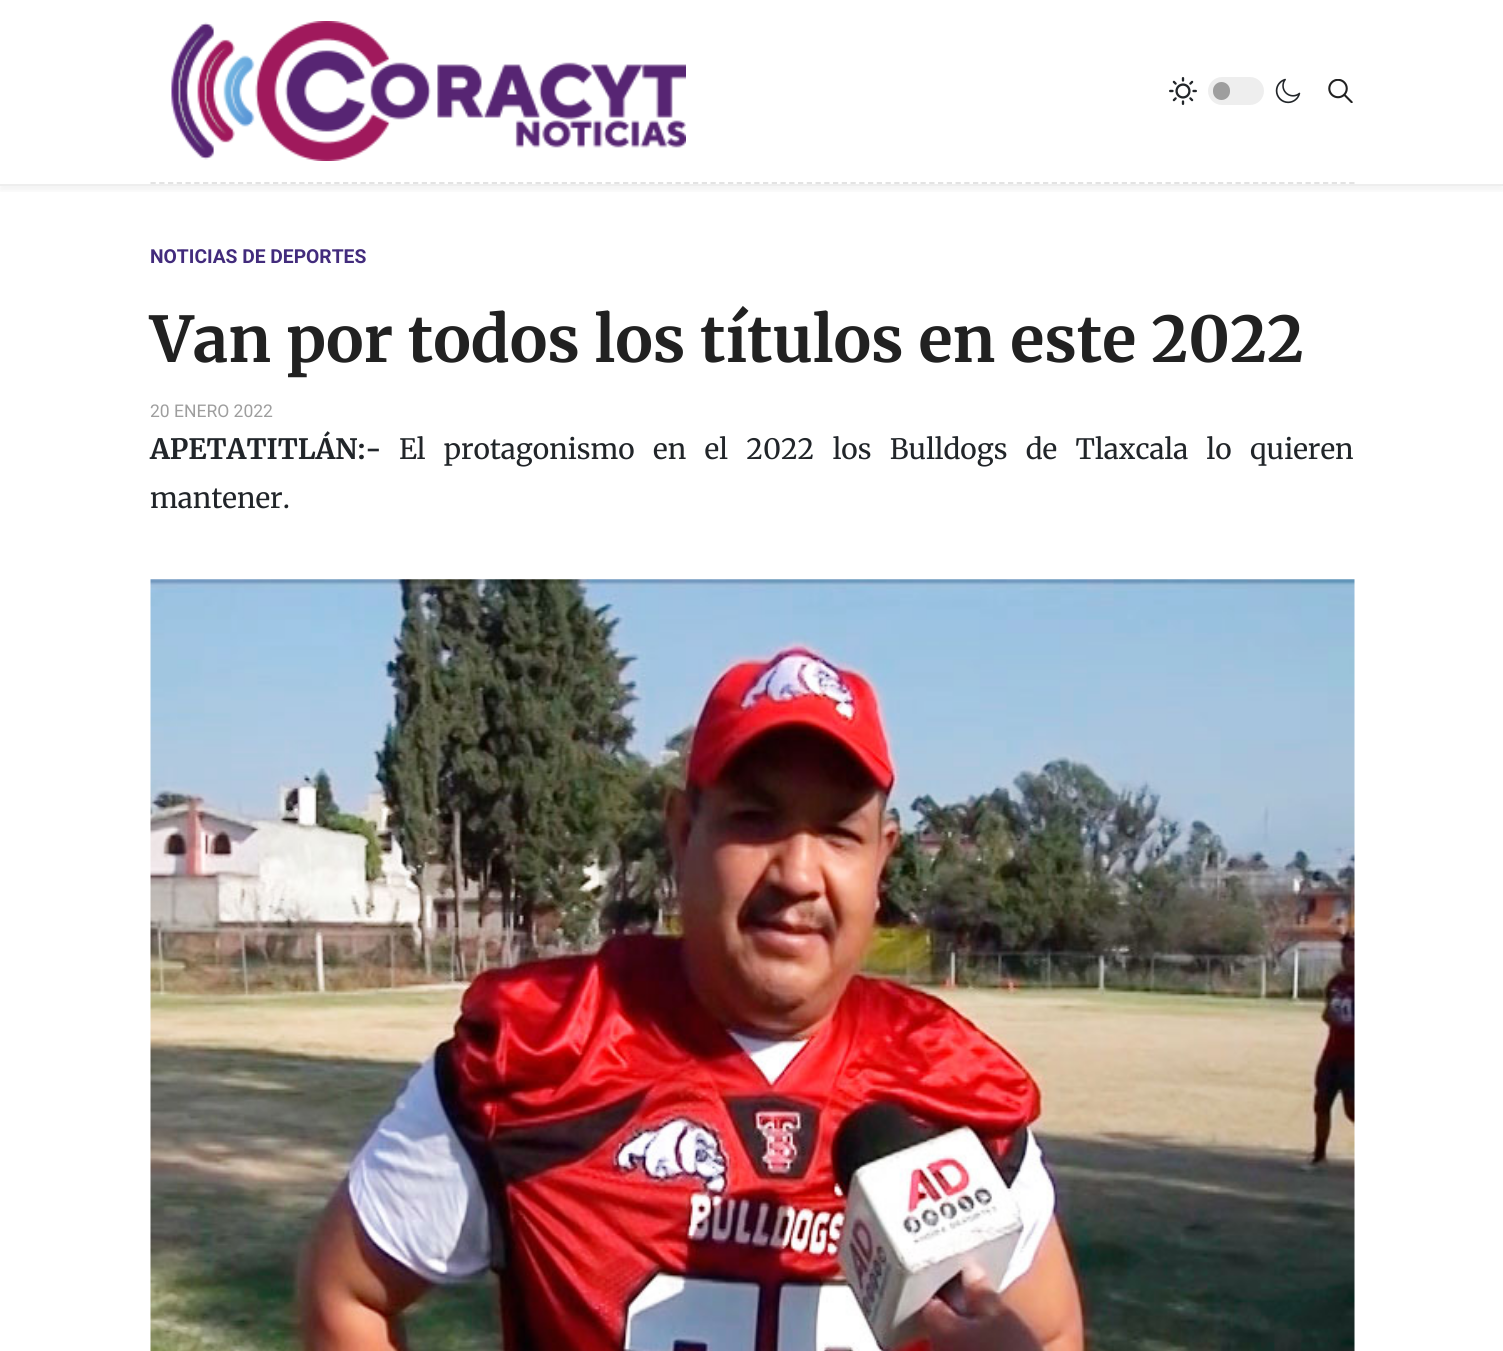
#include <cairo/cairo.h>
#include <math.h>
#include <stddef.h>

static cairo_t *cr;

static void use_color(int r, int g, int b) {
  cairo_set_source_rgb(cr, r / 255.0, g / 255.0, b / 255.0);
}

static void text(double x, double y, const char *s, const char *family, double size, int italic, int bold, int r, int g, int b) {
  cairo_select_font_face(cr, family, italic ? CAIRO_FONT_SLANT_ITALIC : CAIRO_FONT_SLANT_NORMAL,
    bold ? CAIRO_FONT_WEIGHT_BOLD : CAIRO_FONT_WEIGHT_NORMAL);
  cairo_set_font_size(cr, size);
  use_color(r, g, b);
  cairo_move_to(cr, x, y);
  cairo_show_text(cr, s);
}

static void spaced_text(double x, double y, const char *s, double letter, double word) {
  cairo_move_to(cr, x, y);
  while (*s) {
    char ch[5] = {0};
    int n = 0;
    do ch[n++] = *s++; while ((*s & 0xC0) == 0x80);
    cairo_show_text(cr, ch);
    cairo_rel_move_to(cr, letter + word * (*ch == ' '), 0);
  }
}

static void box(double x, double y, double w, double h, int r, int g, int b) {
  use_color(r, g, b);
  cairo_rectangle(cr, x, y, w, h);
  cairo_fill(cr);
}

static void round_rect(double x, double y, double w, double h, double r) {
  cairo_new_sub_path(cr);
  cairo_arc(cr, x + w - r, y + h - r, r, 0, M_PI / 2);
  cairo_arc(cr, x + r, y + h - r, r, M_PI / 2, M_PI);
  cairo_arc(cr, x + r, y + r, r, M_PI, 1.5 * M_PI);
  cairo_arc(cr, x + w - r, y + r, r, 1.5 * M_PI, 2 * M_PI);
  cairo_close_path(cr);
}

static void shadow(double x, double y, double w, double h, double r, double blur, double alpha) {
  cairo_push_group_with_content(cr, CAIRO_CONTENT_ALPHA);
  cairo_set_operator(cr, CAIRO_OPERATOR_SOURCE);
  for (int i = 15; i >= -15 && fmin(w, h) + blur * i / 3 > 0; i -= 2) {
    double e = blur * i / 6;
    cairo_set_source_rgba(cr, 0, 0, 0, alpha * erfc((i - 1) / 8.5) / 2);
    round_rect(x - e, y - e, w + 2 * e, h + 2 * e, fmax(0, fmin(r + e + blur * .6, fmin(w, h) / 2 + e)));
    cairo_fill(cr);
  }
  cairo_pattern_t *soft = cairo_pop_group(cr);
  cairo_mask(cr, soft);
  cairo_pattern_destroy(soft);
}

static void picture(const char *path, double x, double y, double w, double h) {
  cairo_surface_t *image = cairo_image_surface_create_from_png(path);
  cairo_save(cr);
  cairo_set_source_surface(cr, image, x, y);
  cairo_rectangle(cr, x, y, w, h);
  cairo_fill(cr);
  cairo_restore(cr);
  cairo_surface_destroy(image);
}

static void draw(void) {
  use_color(255, 255, 255);
  cairo_paint(cr);
  cairo_save(cr);
  cairo_rectangle(cr, 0, 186, 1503, 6);
  cairo_clip(cr);
  use_color(0, 0, 0);
  shadow(0, 5, 1503, 186, 0, 4.5, 0.05);
  cairo_restore(cr);
  box(0, 184, 1503, 2, 238, 238, 238);
  cairo_new_path(cr);
  cairo_move_to(cr, 150.5, 183);
  cairo_line_to(cr, 1354.5, 183);
  use_color(224, 224, 224);
  cairo_set_line_width(cr, 1.8);
  cairo_set_dash(cr, (double[]){5.25, 3.5}, 2, 0);
  cairo_stroke(cr);
  picture("img_01.png", 171, 21, 515, 140);
  picture("img_02.png", 1169, 77, 28, 28);
  use_color(238, 238, 238);
  round_rect(1208, 77, 56, 28, 14);
  cairo_fill(cr);
  use_color(158, 158, 158);
  round_rect(1213, 82, 17, 18, 8.5);
  cairo_fill(cr);
  picture("img_03.png", 1275, 78, 26, 26);
  picture("img_04.png", 1328, 79, 25, 24);
  picture("img_05.png", 150, 579, 1205, 772);
  text(150, 263, "NOTICIAS DE DEPORTES", "Roboto", 19.25, 0, 1, 66, 43, 124);
  text(150, 362, "Van por todos los títulos en este 2022", "Merriweather", 63, 0, 1, 33, 33, 33);
  text(150, 417, "20 ENERO 2022", "Roboto", 17.5, 0, 0, 158, 158, 158);
  text(150, 459, "APETATITLÁN:-", "Merriweather", 28, 0, 1, 33, 37, 41);
  cairo_select_font_face(cr, "Merriweather", CAIRO_FONT_SLANT_NORMAL, CAIRO_FONT_WEIGHT_NORMAL);
  spaced_text(399, 459, "El protagonismo en el 2022 los Bulldogs de Tlaxcala lo quieren", 0, 11.75);
  text(150, 508, "mantener.", "Merriweather", 28, 0, 0, 33, 37, 41);
}

int main(void) {
  cairo_surface_t *surface = cairo_image_surface_create(CAIRO_FORMAT_RGB24, 1503, 1351);
  cr = cairo_create(surface);
  cairo_font_options_t *options = cairo_font_options_create();
  cairo_font_options_set_hint_metrics(options, CAIRO_HINT_METRICS_OFF);
  cairo_font_options_set_hint_style(options, CAIRO_HINT_STYLE_NONE);
  cairo_set_font_options(cr, options);
  cairo_set_miter_limit(cr, 4);
  draw();
  cairo_surface_write_to_png(surface, "out.png");
  cairo_font_options_destroy(options);
  cairo_destroy(cr);
  cairo_surface_destroy(surface);
  return 0;
}
